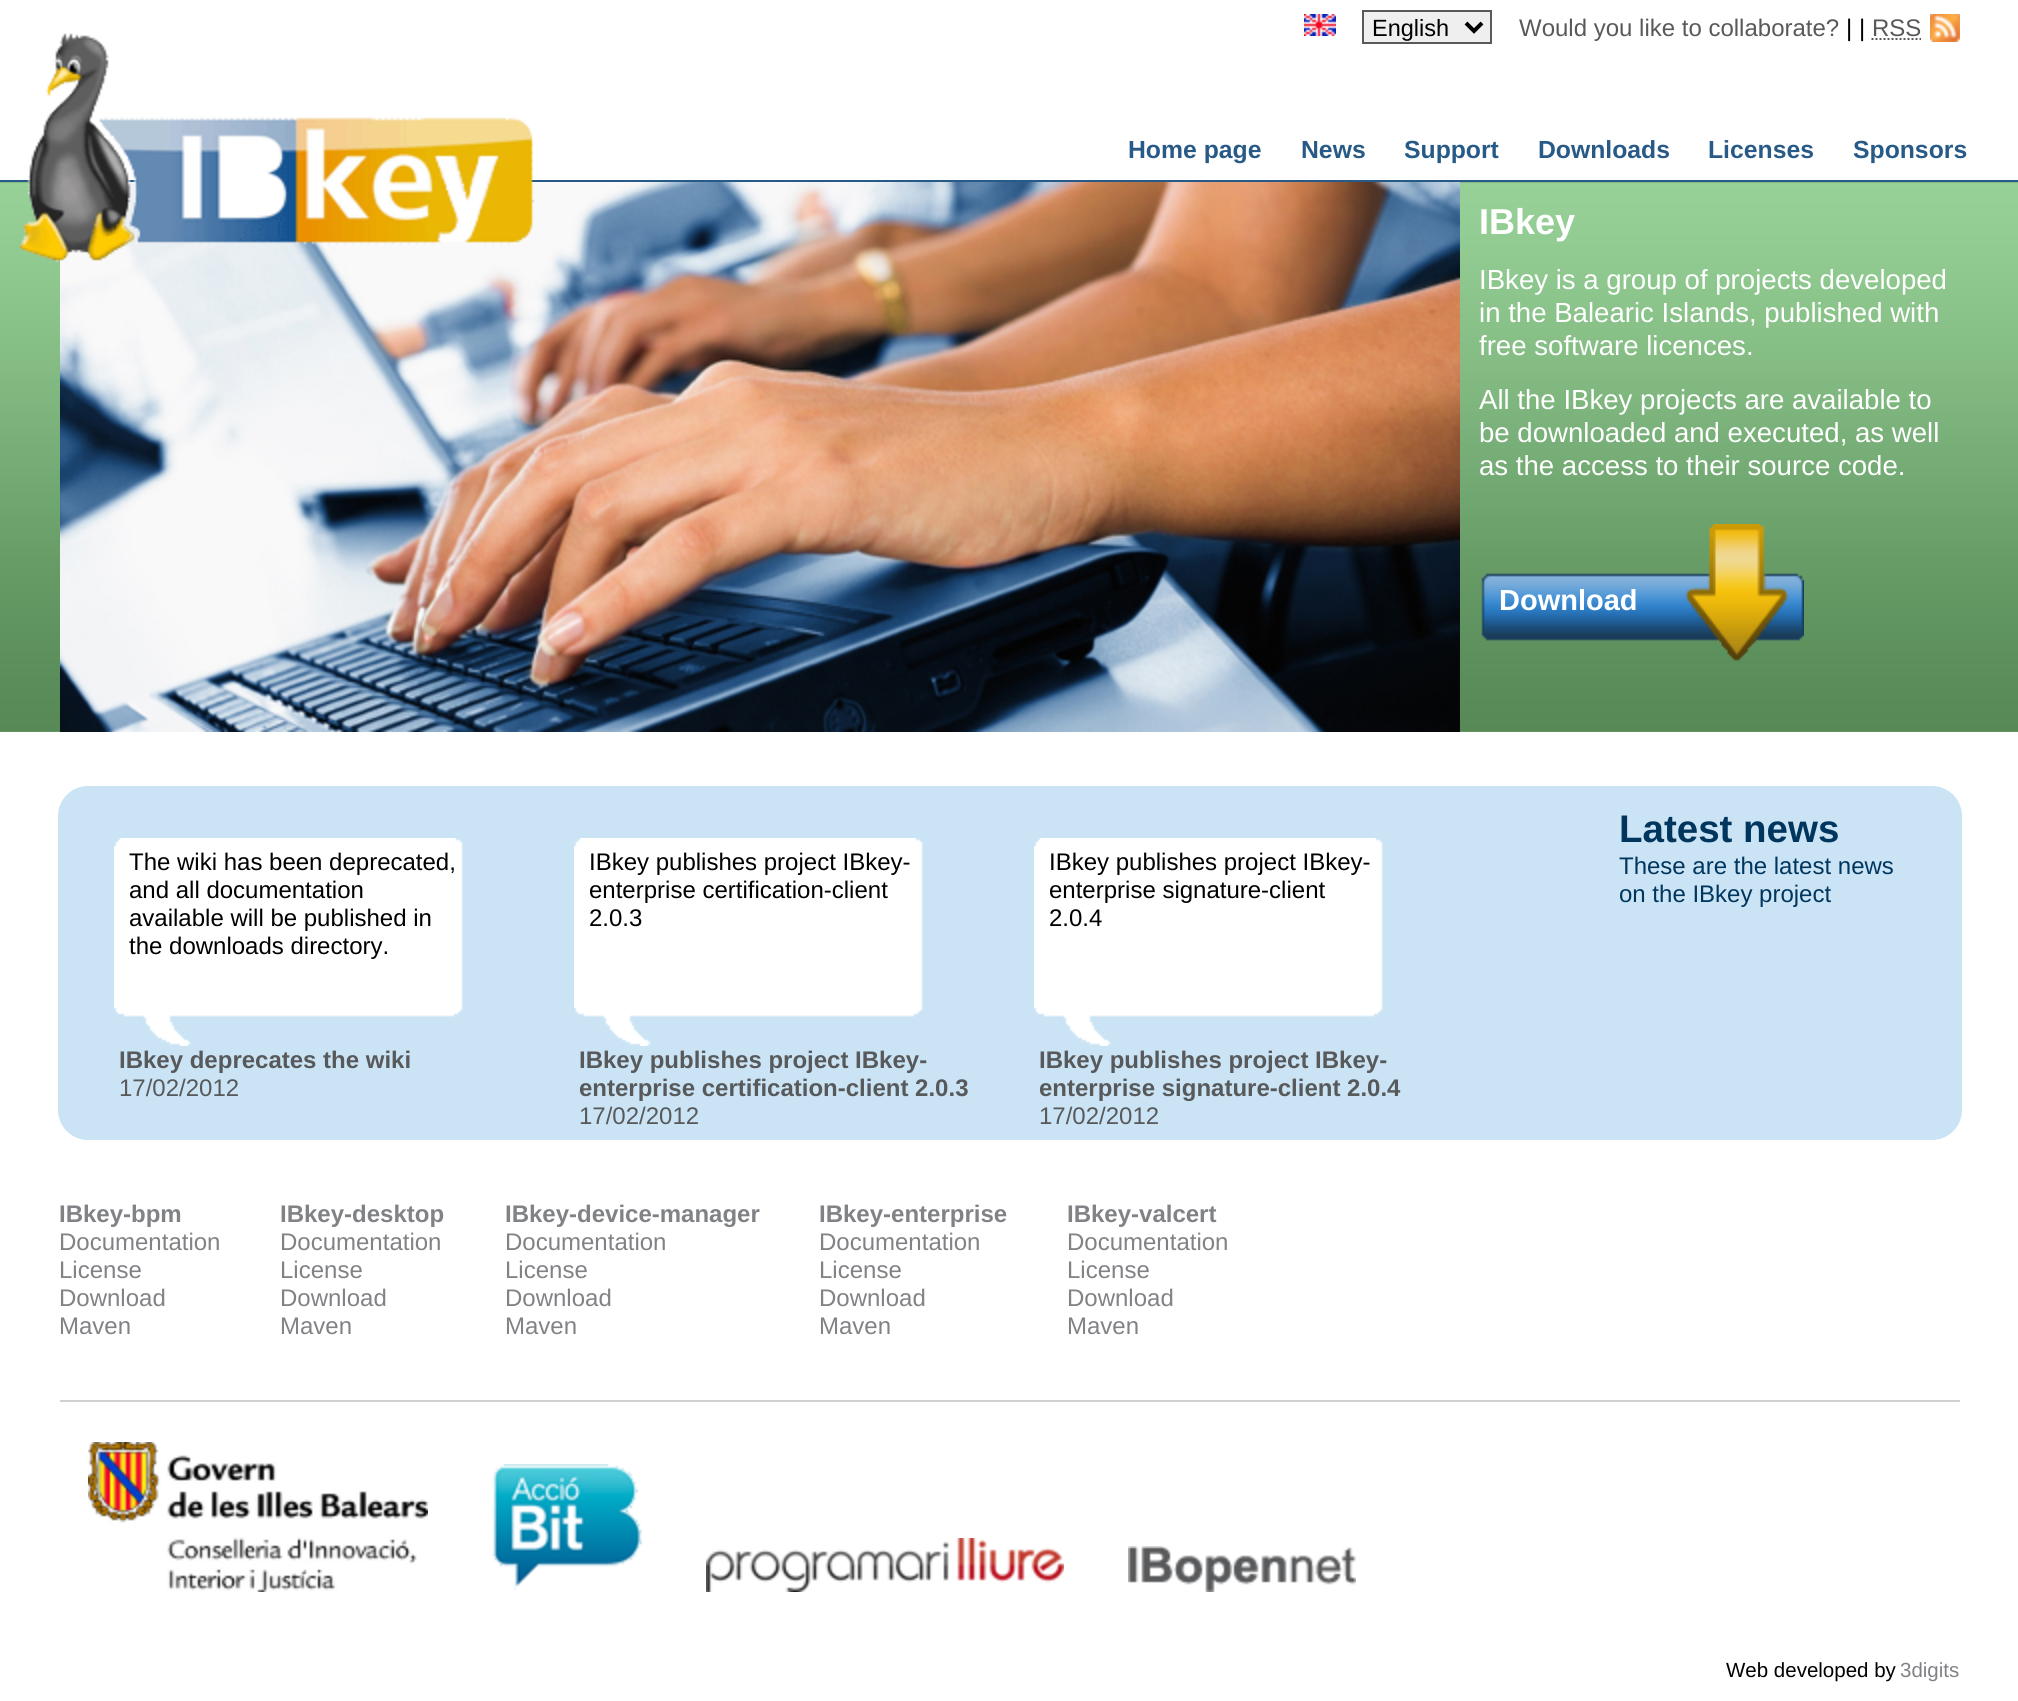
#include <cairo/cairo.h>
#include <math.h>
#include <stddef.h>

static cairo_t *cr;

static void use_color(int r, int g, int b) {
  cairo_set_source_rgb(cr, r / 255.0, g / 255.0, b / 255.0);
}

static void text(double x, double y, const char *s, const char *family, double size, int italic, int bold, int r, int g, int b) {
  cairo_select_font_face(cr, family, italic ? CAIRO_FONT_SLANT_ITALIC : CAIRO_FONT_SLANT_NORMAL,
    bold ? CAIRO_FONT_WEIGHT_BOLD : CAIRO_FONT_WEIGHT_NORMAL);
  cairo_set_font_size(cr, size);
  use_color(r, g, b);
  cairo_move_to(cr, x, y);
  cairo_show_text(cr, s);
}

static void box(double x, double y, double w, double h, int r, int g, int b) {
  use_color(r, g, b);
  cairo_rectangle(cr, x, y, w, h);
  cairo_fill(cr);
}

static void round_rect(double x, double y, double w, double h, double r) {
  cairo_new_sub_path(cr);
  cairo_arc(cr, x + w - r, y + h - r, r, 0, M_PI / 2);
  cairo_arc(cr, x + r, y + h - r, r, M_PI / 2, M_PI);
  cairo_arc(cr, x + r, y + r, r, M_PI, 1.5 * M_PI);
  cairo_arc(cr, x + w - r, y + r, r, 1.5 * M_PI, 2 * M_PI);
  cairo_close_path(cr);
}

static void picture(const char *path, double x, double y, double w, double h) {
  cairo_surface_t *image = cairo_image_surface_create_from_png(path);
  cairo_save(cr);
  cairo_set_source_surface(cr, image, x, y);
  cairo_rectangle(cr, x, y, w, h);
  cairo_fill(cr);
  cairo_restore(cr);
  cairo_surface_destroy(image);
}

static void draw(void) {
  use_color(255, 255, 255);
  cairo_paint(cr);
  picture("img_01.png", 1304, 14, 32, 22);
  use_color(239, 239, 239);
  cairo_rectangle(cr, 1363, 11, 128, 32);
  cairo_fill_preserve(cr);
  use_color(88, 89, 91);
  cairo_stroke(cr);
  cairo_new_path(cr);
  cairo_move_to(cr, 1466, 23);
  cairo_line_to(cr, 1474, 31);
  cairo_line_to(cr, 1482, 23);
  use_color(0, 0, 0);
  cairo_set_line_width(cr, 4);
  cairo_stroke(cr);
  cairo_new_path(cr);
  cairo_move_to(cr, 1871.5, 39);
  cairo_line_to(cr, 1921, 39);
  use_color(88, 89, 91);
  cairo_set_line_width(cr, 2);
  cairo_set_dash(cr, (double[]){2, 2}, 2, 0);
  cairo_stroke(cr);
  picture("img_02.png", 1930, 14, 30, 28);
  picture("img_04.png", 0, 182, 2018, 550);
  box(0, 180, 2018, 2, 40, 90, 135);
  picture("img_05.png", 60, 182, 1400, 550);
  picture("img_03.png", 20, 33, 514, 229);
  picture("img_06.png", 1481, 524, 323, 137);
  use_color(203, 228, 245);
  round_rect(59, 787, 1902, 352, 29);
  cairo_fill_preserve(cr);
  cairo_set_dash(cr, NULL, 0, 0);
  cairo_stroke(cr);
  picture("img_07.png", 114, 838, 349, 208);
  picture("img_07.png", 574, 838, 349, 208);
  picture("img_07.png", 1034, 838, 349, 208);
  box(60, 1400, 1900, 2, 209, 208, 208);
  picture("img_08.png", 88, 1442, 340, 150);
  picture("img_09.png", 492, 1464, 150, 127);
  picture("img_10.png", 706, 1538, 358, 54);
  picture("img_11.png", 1128, 1546, 228, 46);
  text(1372, 36, "English", "Liberation Sans", 23.5, 0, 0, 0, 0, 0);
  text(1519, 36, "Would you like to collaborate?", "Liberation Sans", 24, 0, 0, 88, 89, 91);
  text(1846, 36, "| |", "Liberation Sans", 24, 0, 0, 0, 0, 0);
  text(1872, 36, "RSS", "Liberation Sans", 24, 0, 0, 88, 89, 91);
  text(1128, 158, "Home page", "Liberation Sans", 24.75, 0, 1, 40, 90, 135);
  text(1301, 158, "News", "Liberation Sans", 24.75, 0, 1, 40, 90, 135);
  text(1404, 158, "Support", "Liberation Sans", 24.75, 0, 1, 40, 90, 135);
  text(1538, 158, "Downloads", "Liberation Sans", 24.75, 0, 1, 40, 90, 135);
  text(1708, 158, "Licenses", "Liberation Sans", 24.75, 0, 1, 40, 90, 135);
  text(1853, 158, "Sponsors", "Liberation Sans", 24.75, 0, 1, 40, 90, 135);
  text(1479, 234, "IBkey", "Liberation Sans", 36, 0, 1, 255, 255, 255);
  text(1479, 289, "IBkey is a group of projects developed", "Liberation Sans", 27.6, 0, 0, 255, 255, 255);
  text(1479, 322, "in the Balearic Islands, published with", "Liberation Sans", 27.6, 0, 0, 255, 255, 255);
  text(1479, 355, "free software licences.", "Liberation Sans", 27.6, 0, 0, 255, 255, 255);
  text(1479, 409, "All the IBkey projects are available to", "Liberation Sans", 27.6, 0, 0, 255, 255, 255);
  text(1479, 442, "be downloaded and executed, as well", "Liberation Sans", 27.6, 0, 0, 255, 255, 255);
  text(1479, 475, "as the access to their source code.", "Liberation Sans", 27.6, 0, 0, 255, 255, 255);
  text(1499, 610, "Download", "Liberation Sans", 29, 0, 1, 255, 255, 255);
  text(129, 870, "The wiki has been deprecated,", "Liberation Sans", 24, 0, 0, 0, 0, 0);
  text(129, 898, "and all documentation", "Liberation Sans", 24, 0, 0, 0, 0, 0);
  text(129, 926, "available will be published in", "Liberation Sans", 24, 0, 0, 0, 0, 0);
  text(129, 954, "the downloads directory.", "Liberation Sans", 24, 0, 0, 0, 0, 0);
  text(119, 1068, "IBkey deprecates the wiki", "Liberation Sans", 24, 0, 1, 88, 89, 91);
  text(119, 1096, "17/02/2012", "Liberation Sans", 24, 0, 0, 88, 89, 91);
  text(589, 870, "IBkey publishes project IBkey-", "Liberation Sans", 24, 0, 0, 0, 0, 0);
  text(589, 898, "enterprise certification-client", "Liberation Sans", 24, 0, 0, 0, 0, 0);
  text(589, 926, "2.0.3", "Liberation Sans", 24, 0, 0, 0, 0, 0);
  text(579, 1068, "IBkey publishes project IBkey-", "Liberation Sans", 24, 0, 1, 88, 89, 91);
  text(579, 1096, "enterprise certification-client 2.0.3", "Liberation Sans", 24, 0, 1, 88, 89, 91);
  text(579, 1124, "17/02/2012", "Liberation Sans", 24, 0, 0, 88, 89, 91);
  text(1049, 870, "IBkey publishes project IBkey-", "Liberation Sans", 24, 0, 0, 0, 0, 0);
  text(1049, 898, "enterprise signature-client", "Liberation Sans", 24, 0, 0, 0, 0, 0);
  text(1049, 926, "2.0.4", "Liberation Sans", 24, 0, 0, 0, 0, 0);
  text(1039, 1068, "IBkey publishes project IBkey-", "Liberation Sans", 24, 0, 1, 88, 89, 91);
  text(1039, 1096, "enterprise signature-client 2.0.4", "Liberation Sans", 24, 0, 1, 88, 89, 91);
  text(1039, 1124, "17/02/2012", "Liberation Sans", 24, 0, 0, 88, 89, 91);
  text(1619, 842, "Latest news", "Liberation Sans", 38.5, 0, 1, 0, 54, 94);
  text(1619, 874, "These are the latest news", "Liberation Sans", 24, 0, 0, 0, 54, 94);
  text(1619, 902, "on the IBkey project", "Liberation Sans", 24, 0, 0, 0, 54, 94);
  text(59, 1222, "IBkey-bpm", "Liberation Sans", 24, 0, 1, 128, 130, 133);
  text(59, 1250, "Documentation", "Liberation Sans", 24, 0, 0, 128, 130, 133);
  text(59, 1278, "License", "Liberation Sans", 24, 0, 0, 128, 130, 133);
  text(59, 1306, "Download", "Liberation Sans", 24, 0, 0, 128, 130, 133);
  text(59, 1334, "Maven", "Liberation Sans", 24, 0, 0, 128, 130, 133);
  text(280, 1222, "IBkey-desktop", "Liberation Sans", 24, 0, 1, 128, 130, 133);
  text(280, 1250, "Documentation", "Liberation Sans", 24, 0, 0, 128, 130, 133);
  text(280, 1278, "License", "Liberation Sans", 24, 0, 0, 128, 130, 133);
  text(280, 1306, "Download", "Liberation Sans", 24, 0, 0, 128, 130, 133);
  text(280, 1334, "Maven", "Liberation Sans", 24, 0, 0, 128, 130, 133);
  text(505, 1222, "IBkey-device-manager", "Liberation Sans", 24, 0, 1, 128, 130, 133);
  text(505, 1250, "Documentation", "Liberation Sans", 24, 0, 0, 128, 130, 133);
  text(505, 1278, "License", "Liberation Sans", 24, 0, 0, 128, 130, 133);
  text(505, 1306, "Download", "Liberation Sans", 24, 0, 0, 128, 130, 133);
  text(505, 1334, "Maven", "Liberation Sans", 24, 0, 0, 128, 130, 133);
  text(819, 1222, "IBkey-enterprise", "Liberation Sans", 24, 0, 1, 128, 130, 133);
  text(819, 1250, "Documentation", "Liberation Sans", 24, 0, 0, 128, 130, 133);
  text(819, 1278, "License", "Liberation Sans", 24, 0, 0, 128, 130, 133);
  text(819, 1306, "Download", "Liberation Sans", 24, 0, 0, 128, 130, 133);
  text(819, 1334, "Maven", "Liberation Sans", 24, 0, 0, 128, 130, 133);
  text(1067, 1222, "IBkey-valcert", "Liberation Sans", 24, 0, 1, 128, 130, 133);
  text(1067, 1250, "Documentation", "Liberation Sans", 24, 0, 0, 128, 130, 133);
  text(1067, 1278, "License", "Liberation Sans", 24, 0, 0, 128, 130, 133);
  text(1067, 1306, "Download", "Liberation Sans", 24, 0, 0, 128, 130, 133);
  text(1067, 1334, "Maven", "Liberation Sans", 24, 0, 0, 128, 130, 133);
  text(1726, 1677, "Web developed by", "Liberation Sans", 20.5, 0, 0, 0, 0, 0);
  text(1900, 1677, "3digits", "Liberation Sans", 20.5, 0, 0, 128, 130, 133);
}

int main(void) {
  cairo_surface_t *surface = cairo_image_surface_create(CAIRO_FORMAT_RGB24, 2018, 1701);
  cr = cairo_create(surface);
  cairo_font_options_t *options = cairo_font_options_create();
  cairo_font_options_set_hint_metrics(options, CAIRO_HINT_METRICS_OFF);
  cairo_font_options_set_hint_style(options, CAIRO_HINT_STYLE_NONE);
  cairo_set_font_options(cr, options);
  cairo_set_miter_limit(cr, 4);
  draw();
  cairo_surface_write_to_png(surface, "out.png");
  cairo_font_options_destroy(options);
  cairo_destroy(cr);
  cairo_surface_destroy(surface);
  return 0;
}
